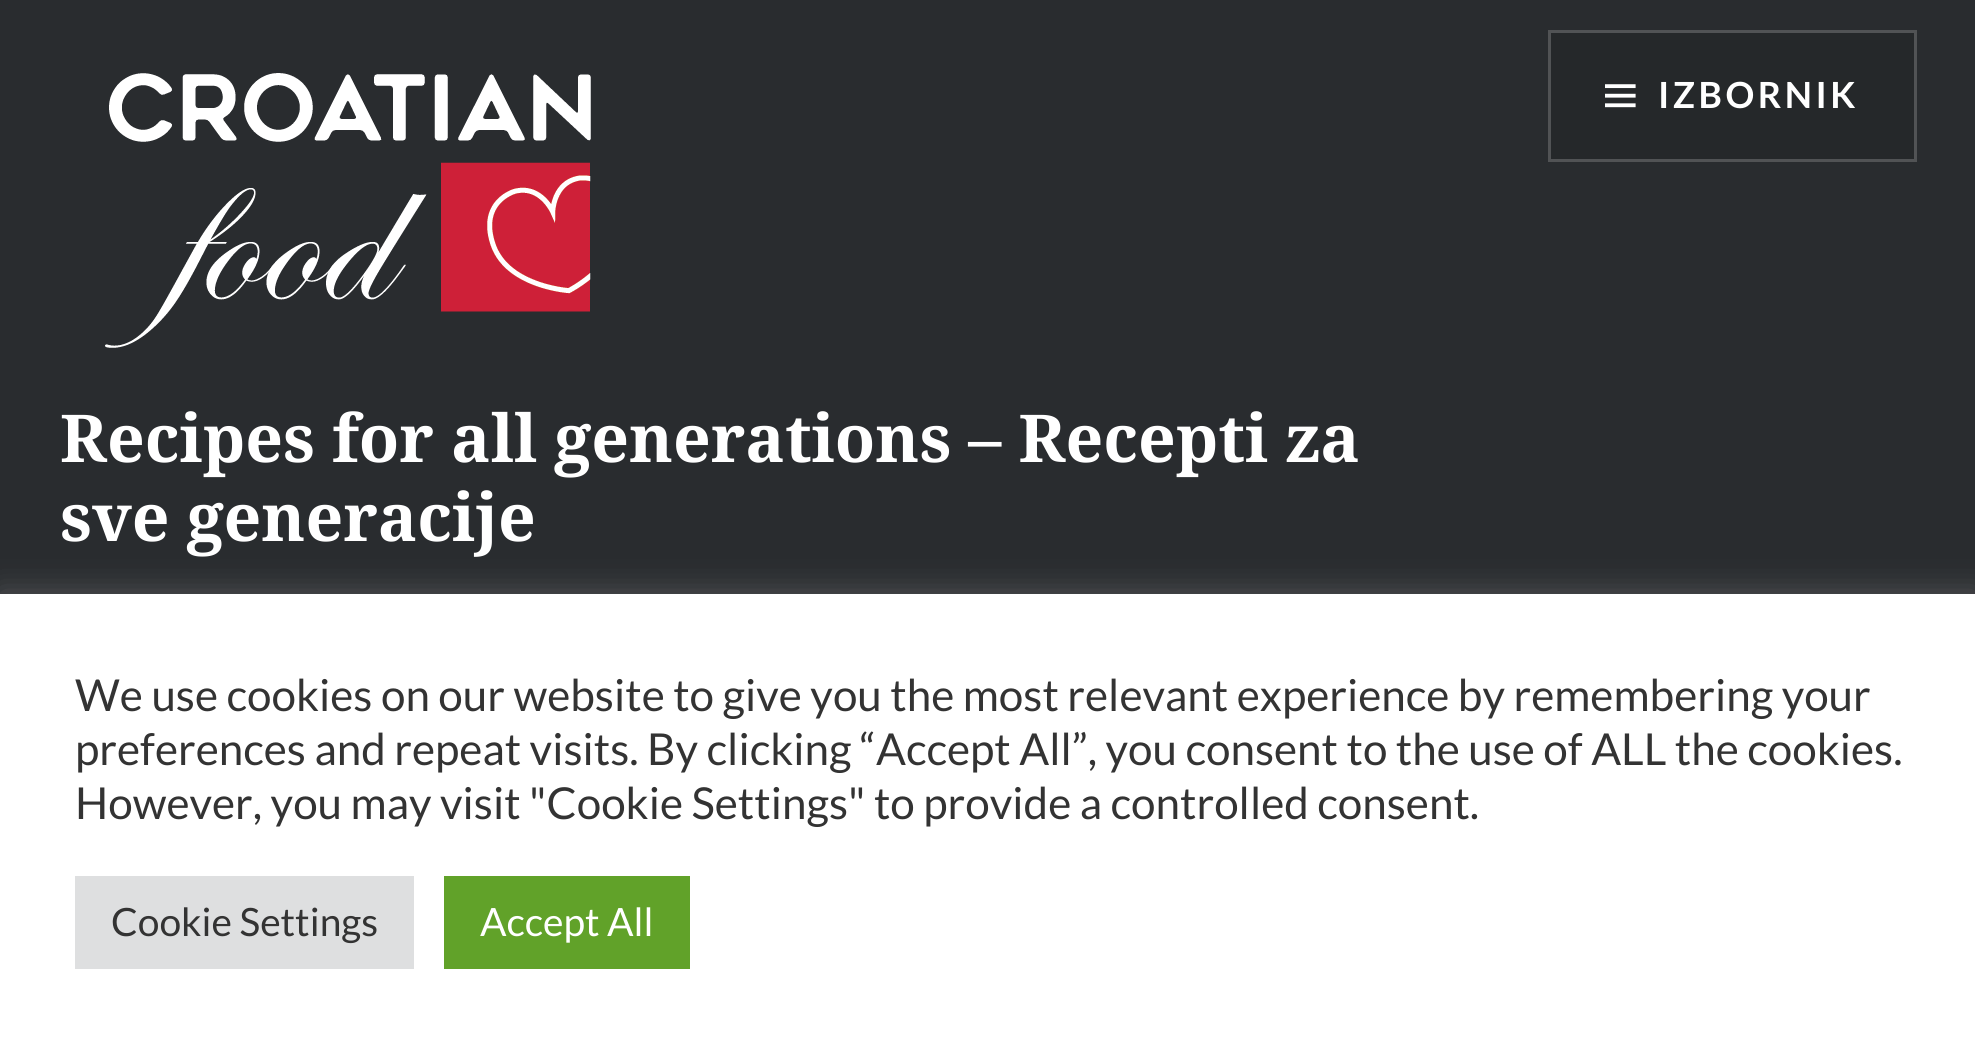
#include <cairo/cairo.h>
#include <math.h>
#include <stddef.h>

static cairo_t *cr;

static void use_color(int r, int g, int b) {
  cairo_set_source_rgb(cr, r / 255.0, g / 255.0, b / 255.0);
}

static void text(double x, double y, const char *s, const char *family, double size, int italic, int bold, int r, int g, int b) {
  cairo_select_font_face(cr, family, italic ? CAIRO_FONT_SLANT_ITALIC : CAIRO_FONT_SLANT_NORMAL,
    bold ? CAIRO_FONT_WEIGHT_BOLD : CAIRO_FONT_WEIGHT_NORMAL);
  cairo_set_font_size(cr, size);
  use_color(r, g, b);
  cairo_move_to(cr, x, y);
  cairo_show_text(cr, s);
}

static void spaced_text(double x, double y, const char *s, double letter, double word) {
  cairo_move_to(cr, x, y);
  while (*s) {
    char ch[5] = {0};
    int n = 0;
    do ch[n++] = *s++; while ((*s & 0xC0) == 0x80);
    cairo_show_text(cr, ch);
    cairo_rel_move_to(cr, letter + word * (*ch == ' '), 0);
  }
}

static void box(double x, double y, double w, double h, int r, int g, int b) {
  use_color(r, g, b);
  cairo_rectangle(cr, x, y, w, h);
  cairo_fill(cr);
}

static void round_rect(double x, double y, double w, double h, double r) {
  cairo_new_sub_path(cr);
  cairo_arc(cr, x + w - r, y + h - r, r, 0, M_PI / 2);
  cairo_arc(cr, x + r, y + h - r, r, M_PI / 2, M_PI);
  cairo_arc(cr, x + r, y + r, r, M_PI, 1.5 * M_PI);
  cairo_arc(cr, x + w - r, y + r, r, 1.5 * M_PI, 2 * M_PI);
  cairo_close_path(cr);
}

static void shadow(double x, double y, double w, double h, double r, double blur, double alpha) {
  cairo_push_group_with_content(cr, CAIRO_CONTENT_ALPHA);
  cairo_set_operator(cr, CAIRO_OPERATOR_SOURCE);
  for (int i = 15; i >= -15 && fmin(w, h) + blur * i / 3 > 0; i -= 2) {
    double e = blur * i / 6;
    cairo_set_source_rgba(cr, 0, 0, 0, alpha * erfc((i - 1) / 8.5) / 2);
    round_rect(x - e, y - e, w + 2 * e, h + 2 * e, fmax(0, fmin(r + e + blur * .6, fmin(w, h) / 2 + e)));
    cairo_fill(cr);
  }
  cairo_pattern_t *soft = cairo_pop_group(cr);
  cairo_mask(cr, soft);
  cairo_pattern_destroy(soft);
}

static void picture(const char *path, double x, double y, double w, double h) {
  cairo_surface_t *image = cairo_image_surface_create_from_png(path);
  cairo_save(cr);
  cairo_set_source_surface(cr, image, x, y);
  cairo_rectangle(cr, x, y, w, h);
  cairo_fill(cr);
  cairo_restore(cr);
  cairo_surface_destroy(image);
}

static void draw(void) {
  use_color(41, 44, 47);
  cairo_paint(cr);
  use_color(37, 40, 42);
  cairo_rectangle(cr, 1549.5, 31.5, 366, 129);
  cairo_fill_preserve(cr);
  use_color(81, 83, 85);
  cairo_set_line_width(cr, 3);
  cairo_stroke(cr);
  picture("img_01.png", 1605, 84, 31, 24);
  picture("img_02.png", 105, 73, 486, 275);
  use_color(172, 171, 171);
  shadow(0, 591, 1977, 465, 0, 15, 0.3);
  box(0, 594, 1975, 464, 255, 255, 255);
  box(75, 876, 339, 93, 222, 223, 224);
  box(444, 876, 246, 93, 97, 162, 41);
  cairo_select_font_face(cr, "Lato", CAIRO_FONT_SLANT_NORMAL, CAIRO_FONT_WEIGHT_BOLD);
  cairo_set_font_size(cr, 36);
  use_color(255, 255, 255);
  spaced_text(1658, 108, "IZBORNIK", 3.5, 0);
  text(60, 462, "Recipes for all generations – Recepti za", "Noto Serif", 66, 0, 1, 255, 255, 255);
  text(60, 541, "sve generacije", "Noto Serif", 66, 0, 1, 255, 255, 255);
  text(75, 711, "We use cookies on our website to give you the most relevant experience by remembering your", "Lato", 44, 0, 0, 51, 51, 51);
  text(75, 765, "preferences and repeat visits. By clicking “Accept All”, you consent to the use of ALL the cookies.", "Lato", 44, 0, 0, 51, 51, 51);
  text(75, 819, "However, you may visit \"Cookie Settings\" to provide a controlled consent.", "Lato", 44, 0, 0, 51, 51, 51);
  text(111, 936, "Cookie Settings", "Lato", 39, 0, 0, 51, 51, 51);
  text(480, 936, "Accept All", "Lato", 39, 0, 0, 255, 255, 255);
}

int main(void) {
  cairo_surface_t *surface = cairo_image_surface_create(CAIRO_FORMAT_RGB24, 1975, 1058);
  cr = cairo_create(surface);
  cairo_font_options_t *options = cairo_font_options_create();
  cairo_font_options_set_hint_metrics(options, CAIRO_HINT_METRICS_OFF);
  cairo_font_options_set_hint_style(options, CAIRO_HINT_STYLE_NONE);
  cairo_set_font_options(cr, options);
  cairo_set_miter_limit(cr, 4);
  draw();
  cairo_surface_write_to_png(surface, "out.png");
  cairo_font_options_destroy(options);
  cairo_destroy(cr);
  cairo_surface_destroy(surface);
  return 0;
}
